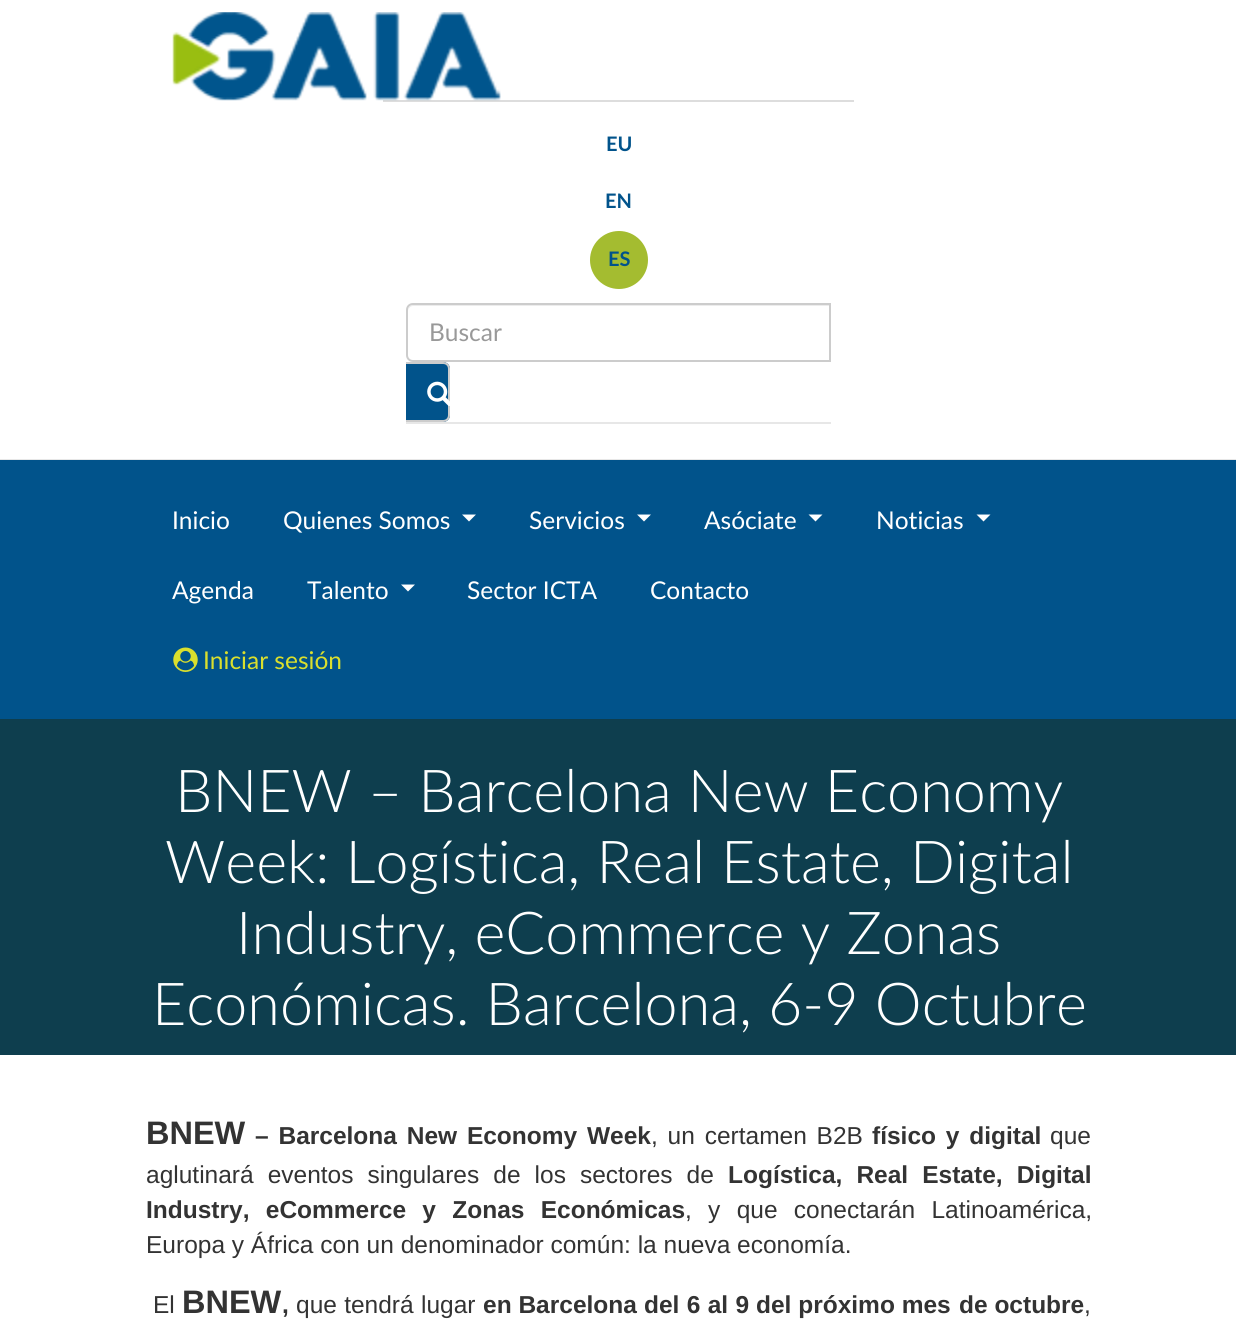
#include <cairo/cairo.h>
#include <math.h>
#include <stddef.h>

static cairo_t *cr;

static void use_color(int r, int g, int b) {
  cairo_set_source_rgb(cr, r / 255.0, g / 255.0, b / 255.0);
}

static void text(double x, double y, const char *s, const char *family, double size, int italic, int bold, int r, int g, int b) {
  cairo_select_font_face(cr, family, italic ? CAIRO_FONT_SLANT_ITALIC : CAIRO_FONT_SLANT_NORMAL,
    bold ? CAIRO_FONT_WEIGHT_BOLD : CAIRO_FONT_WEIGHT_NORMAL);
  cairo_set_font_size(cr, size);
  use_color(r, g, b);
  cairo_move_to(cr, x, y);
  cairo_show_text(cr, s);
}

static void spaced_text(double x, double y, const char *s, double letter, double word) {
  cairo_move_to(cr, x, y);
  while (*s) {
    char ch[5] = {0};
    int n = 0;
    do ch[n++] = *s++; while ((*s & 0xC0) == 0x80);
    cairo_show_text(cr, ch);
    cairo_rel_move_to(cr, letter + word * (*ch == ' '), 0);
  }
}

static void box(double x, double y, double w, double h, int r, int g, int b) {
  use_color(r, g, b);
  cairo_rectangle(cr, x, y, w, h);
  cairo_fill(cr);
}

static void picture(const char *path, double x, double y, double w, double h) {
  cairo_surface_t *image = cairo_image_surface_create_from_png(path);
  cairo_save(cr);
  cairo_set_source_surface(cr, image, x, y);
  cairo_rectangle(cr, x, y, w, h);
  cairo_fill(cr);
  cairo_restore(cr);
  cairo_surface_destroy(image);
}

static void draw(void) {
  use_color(255, 255, 255);
  cairo_paint(cr);
  box(383, 100, 471, 2, 221, 221, 221);
  picture("img_01.png", 172, 12, 329, 89);
  use_color(164, 188, 48);
  cairo_arc(cr, 619, 260, 29, 0, 2 * M_PI);
  cairo_fill(cr);
  box(406, 422, 425, 2, 231, 231, 231);
  use_color(236, 236, 236);
  cairo_new_path(cr);
  cairo_move_to(cr, 413, 306);
  cairo_line_to(cr, 830, 306);
  cairo_line_to(cr, 830, 305);
  cairo_line_to(cr, 413, 305);
  cairo_curve_to(cr, 409, 305, 408, 309, 408, 312);
  cairo_curve_to(cr, 408, 309, 410, 306, 413, 306);
  cairo_close_path(cr);
  cairo_fill(cr);
  cairo_new_path(cr);
  cairo_move_to(cr, 413, 304);
  cairo_line_to(cr, 830, 304);
  cairo_line_to(cr, 830, 361);
  cairo_line_to(cr, 413, 361);
  cairo_curve_to(cr, 409.5, 361, 407, 358.5, 407, 355);
  cairo_line_to(cr, 407, 310);
  cairo_curve_to(cr, 407, 306.5, 409.5, 304, 413, 304);
  cairo_close_path(cr);
  use_color(204, 204, 204);
  cairo_stroke(cr);
  use_color(1, 83, 139);
  cairo_new_path(cr);
  cairo_move_to(cr, 406, 362);
  cairo_line_to(cr, 443, 362);
  cairo_curve_to(cr, 447, 362, 450, 365, 450, 369);
  cairo_line_to(cr, 450, 415);
  cairo_curve_to(cr, 450, 419, 447, 422, 443, 422);
  cairo_line_to(cr, 406, 422);
  cairo_close_path(cr);
  cairo_fill(cr);
  use_color(204, 204, 204);
  cairo_set_fill_rule(cr, CAIRO_FILL_RULE_EVEN_ODD);
  cairo_new_path(cr);
  cairo_move_to(cr, 406, 362);
  cairo_line_to(cr, 443, 362);
  cairo_curve_to(cr, 447, 362, 450, 365, 450, 369);
  cairo_line_to(cr, 450, 415);
  cairo_curve_to(cr, 450, 419, 447, 422, 443, 422);
  cairo_line_to(cr, 406, 422);
  cairo_close_path(cr);
  cairo_move_to(cr, 406, 364);
  cairo_line_to(cr, 443, 364);
  cairo_curve_to(cr, 446, 364, 448, 366, 448, 369);
  cairo_line_to(cr, 448, 415);
  cairo_curve_to(cr, 448, 418, 446, 420, 443, 420);
  cairo_line_to(cr, 406, 420);
  cairo_close_path(cr);
  cairo_fill(cr);
  picture("img_02.png", 427, 381, 23, 25);
  box(0, 459, 1236, 1, 231, 231, 231);
  box(0, 460, 1236, 259, 1, 83, 139);
  use_color(255, 255, 255);
  cairo_set_fill_rule(cr, CAIRO_FILL_RULE_WINDING);
  cairo_new_path(cr);
  cairo_move_to(cr, 462, 514.5);
  cairo_line_to(cr, 476, 514.5);
  cairo_line_to(cr, 469, 521.5);
  cairo_close_path(cr);
  cairo_fill(cr);
  cairo_new_path(cr);
  cairo_move_to(cr, 637, 514.5);
  cairo_line_to(cr, 651, 514.5);
  cairo_line_to(cr, 644, 521.5);
  cairo_close_path(cr);
  cairo_fill(cr);
  cairo_new_path(cr);
  cairo_move_to(cr, 808.5, 514.5);
  cairo_line_to(cr, 822.5, 514.5);
  cairo_line_to(cr, 815.5, 521.5);
  cairo_close_path(cr);
  cairo_fill(cr);
  cairo_new_path(cr);
  cairo_move_to(cr, 976.5, 514.5);
  cairo_line_to(cr, 990.5, 514.5);
  cairo_line_to(cr, 983.5, 521.5);
  cairo_close_path(cr);
  cairo_fill(cr);
  cairo_new_path(cr);
  cairo_move_to(cr, 401, 584.5);
  cairo_line_to(cr, 415, 584.5);
  cairo_line_to(cr, 408, 591.5);
  cairo_close_path(cr);
  cairo_fill(cr);
  picture("img_03.png", 173, 647, 25, 25);
  box(0, 719, 1236, 336, 14, 62, 78);
  text(606, 151, "EU", "Lato", 20, 0, 1, 1, 83, 139);
  text(605, 208, "EN", "Lato", 20, 0, 1, 1, 83, 139);
  text(608, 266, "ES", "Lato", 20, 0, 1, 1, 83, 139);
  text(429, 341, "Buscar", "Lato", 24.5, 0, 0, 153, 153, 153);
  text(172, 529, "Inicio", "Lato", 24.5, 0, 0, 255, 255, 255);
  text(283, 529, "Quienes Somos", "Lato", 24.5, 0, 0, 255, 255, 255);
  text(529, 529, "Servicios", "Lato", 24.5, 0, 0, 255, 255, 255);
  text(704, 529, "Asóciate", "Lato", 24.5, 0, 0, 255, 255, 255);
  text(876, 529, "Noticias", "Lato", 24.5, 0, 0, 255, 255, 255);
  text(172, 599, "Agenda", "Lato", 24.5, 0, 0, 255, 255, 255);
  text(307, 599, "Talento", "Lato", 24.5, 0, 0, 255, 255, 255);
  text(467, 599, "Sector ICTA", "Lato", 24.5, 0, 0, 255, 255, 255);
  text(650, 599, "Contacto", "Lato", 24.5, 0, 0, 255, 255, 255);
  text(203, 669, "Iniciar sesión", "Lato", 24.5, 0, 0, 218, 223, 45);
  text(175, 812, "BNEW – Barcelona New Economy", "Lato Light", 59.25, 0, 0, 255, 255, 255);
  text(165, 883, "Week: Logística, Real Estate, Digital", "Lato Light", 59.25, 0, 0, 255, 255, 255);
  text(236, 954, "Industry, eCommerce y Zonas", "Lato Light", 59.25, 0, 0, 255, 255, 255);
  text(152, 1025, "Económicas. Barcelona, 6-9 Octubre", "Lato Light", 59.25, 0, 0, 255, 255, 255);
  text(146, 1144, "BNEW", "Liberation Sans", 32.5, 0, 1, 51, 51, 51);
  cairo_set_font_size(cr, 24.5);
  spaced_text(255, 1144, "– Barcelona New Economy Week", 0, 3);
  cairo_select_font_face(cr, "Liberation Sans", CAIRO_FONT_SLANT_NORMAL, CAIRO_FONT_WEIGHT_NORMAL);
  spaced_text(651, 1144, ", un certamen B2B", 0, 3);
  cairo_select_font_face(cr, "Liberation Sans", CAIRO_FONT_SLANT_NORMAL, CAIRO_FONT_WEIGHT_BOLD);
  spaced_text(872, 1144, "físico y digital", 0, 3);
  text(1050, 1144, "que", "Liberation Sans", 24.5, 0, 0, 51, 51, 51);
  spaced_text(146, 1183, "aglutinará eventos singulares de los sectores de", 0, 7.25);
  cairo_select_font_face(cr, "Liberation Sans", CAIRO_FONT_SLANT_NORMAL, CAIRO_FONT_WEIGHT_BOLD);
  spaced_text(728, 1183, "Logística, Real Estate, Digital", 0, 7.25);
  spaced_text(146, 1218, "Industry, eCommerce y Zonas Económicas", 0, 9.5);
  cairo_select_font_face(cr, "Liberation Sans", CAIRO_FONT_SLANT_NORMAL, CAIRO_FONT_WEIGHT_NORMAL);
  spaced_text(685, 1218, ", y que conectarán Latinoamérica,", 0, 9.5);
  text(146, 1253, "Europa y África con un denominador común: la nueva economía.", "Liberation Sans", 24.5, 0, 0, 51, 51, 51);
  text(153, 1313, "El", "Liberation Sans", 24.5, 0, 0, 51, 51, 51);
  text(182, 1313, "BNEW", "Liberation Sans", 32.5, 0, 1, 51, 51, 51);
  text(282, 1313, ",", "Liberation Sans", 24.5, 0, 1, 51, 51, 51);
  cairo_select_font_face(cr, "Liberation Sans", CAIRO_FONT_SLANT_NORMAL, CAIRO_FONT_WEIGHT_NORMAL);
  spaced_text(296, 1313, "que tendrá lugar", 0, 0.5);
  text(483, 1313, "en Barcelona", "Liberation Sans", 24.5, 0, 1, 51, 51, 51);
  spaced_text(644, 1313, "del 6 al 9", 0, 0.5);
  text(756, 1313, "del próximo mes", "Liberation Sans", 24.5, 0, 1, 51, 51, 51);
  text(959, 1313, "de octubre", "Liberation Sans", 24.5, 0, 1, 51, 51, 51);
  text(1084, 1313, ",", "Liberation Sans", 24.5, 0, 0, 51, 51, 51);
}

int main(void) {
  cairo_surface_t *surface = cairo_image_surface_create(CAIRO_FORMAT_RGB24, 1236, 1321);
  cr = cairo_create(surface);
  cairo_font_options_t *options = cairo_font_options_create();
  cairo_font_options_set_hint_metrics(options, CAIRO_HINT_METRICS_OFF);
  cairo_font_options_set_hint_style(options, CAIRO_HINT_STYLE_NONE);
  cairo_set_font_options(cr, options);
  cairo_set_miter_limit(cr, 4);
  draw();
  cairo_surface_write_to_png(surface, "out.png");
  cairo_font_options_destroy(options);
  cairo_destroy(cr);
  cairo_surface_destroy(surface);
  return 0;
}
